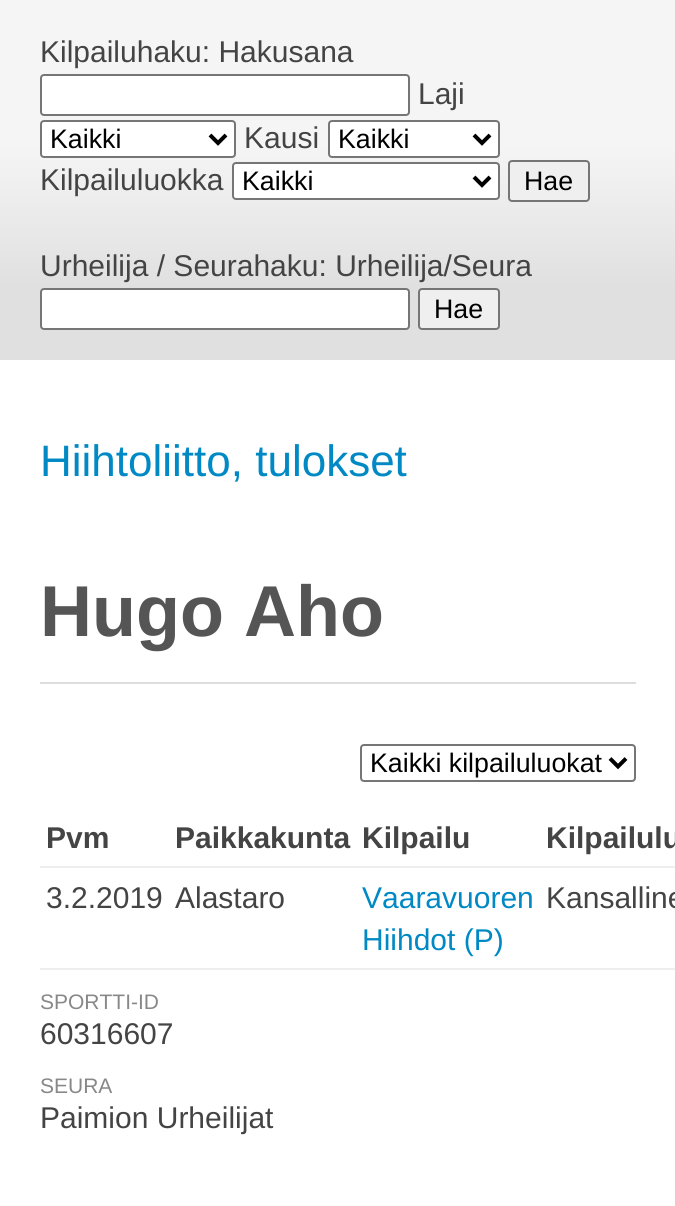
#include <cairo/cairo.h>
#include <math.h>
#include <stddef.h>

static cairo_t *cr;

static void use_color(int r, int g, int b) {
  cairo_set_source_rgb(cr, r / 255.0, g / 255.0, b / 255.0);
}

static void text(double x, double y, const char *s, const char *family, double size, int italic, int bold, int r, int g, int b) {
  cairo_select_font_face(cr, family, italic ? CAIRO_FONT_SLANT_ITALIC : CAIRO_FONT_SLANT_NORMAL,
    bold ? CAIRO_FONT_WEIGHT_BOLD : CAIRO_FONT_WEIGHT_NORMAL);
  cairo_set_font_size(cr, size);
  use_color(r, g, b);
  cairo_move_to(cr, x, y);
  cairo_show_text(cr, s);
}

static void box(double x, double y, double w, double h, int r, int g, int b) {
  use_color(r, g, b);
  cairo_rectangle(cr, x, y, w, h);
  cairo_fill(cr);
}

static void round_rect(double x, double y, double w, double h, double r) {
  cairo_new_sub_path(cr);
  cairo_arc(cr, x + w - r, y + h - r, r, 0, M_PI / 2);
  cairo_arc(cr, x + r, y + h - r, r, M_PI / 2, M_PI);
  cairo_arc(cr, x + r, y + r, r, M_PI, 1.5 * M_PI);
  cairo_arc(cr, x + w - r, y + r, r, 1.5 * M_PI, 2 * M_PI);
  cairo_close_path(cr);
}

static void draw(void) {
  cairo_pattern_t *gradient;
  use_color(255, 255, 255);
  cairo_paint(cr);
  gradient = cairo_pattern_create_linear(0, 360, 0, 0);
  cairo_pattern_add_color_stop_rgba(gradient, 0.2, 0.878, 0.878, 0.878, 1);
  cairo_pattern_add_color_stop_rgba(gradient, 0.6, 0.961, 0.961, 0.961, 1);
  cairo_set_source(cr, gradient);
  cairo_pattern_destroy(gradient);
  cairo_rectangle(cr, 0, 0, 675, 360);
  cairo_fill(cr);
  use_color(255, 255, 255);
  round_rect(41, 75, 368, 40, 3);
  cairo_fill_preserve(cr);
  use_color(118, 118, 118);
  cairo_stroke(cr);
  use_color(255, 255, 255);
  round_rect(41, 121, 194, 36, 3);
  cairo_fill_preserve(cr);
  use_color(118, 118, 118);
  cairo_stroke(cr);
  cairo_new_path(cr);
  cairo_move_to(cr, 210, 135);
  cairo_line_to(cr, 218, 143);
  cairo_line_to(cr, 226, 135);
  use_color(0, 0, 0);
  cairo_set_line_width(cr, 4);
  cairo_stroke(cr);
  use_color(255, 255, 255);
  round_rect(329, 121, 170, 36, 3);
  cairo_fill_preserve(cr);
  use_color(118, 118, 118);
  cairo_set_line_width(cr, 2);
  cairo_stroke(cr);
  cairo_new_path(cr);
  cairo_move_to(cr, 474, 135);
  cairo_line_to(cr, 482, 143);
  cairo_line_to(cr, 490, 135);
  use_color(0, 0, 0);
  cairo_set_line_width(cr, 4);
  cairo_stroke(cr);
  use_color(255, 255, 255);
  round_rect(233, 163, 266, 36, 3);
  cairo_fill_preserve(cr);
  use_color(118, 118, 118);
  cairo_set_line_width(cr, 2);
  cairo_stroke(cr);
  cairo_new_path(cr);
  cairo_move_to(cr, 474, 177);
  cairo_line_to(cr, 482, 185);
  cairo_line_to(cr, 490, 177);
  use_color(0, 0, 0);
  cairo_set_line_width(cr, 4);
  cairo_stroke(cr);
  use_color(239, 239, 239);
  round_rect(509, 161, 80, 40, 3);
  cairo_fill_preserve(cr);
  use_color(118, 118, 118);
  cairo_set_line_width(cr, 2);
  cairo_stroke(cr);
  use_color(255, 255, 255);
  round_rect(41, 289, 368, 40, 3);
  cairo_fill_preserve(cr);
  use_color(118, 118, 118);
  cairo_stroke(cr);
  use_color(239, 239, 239);
  round_rect(419, 289, 80, 40, 3);
  cairo_fill_preserve(cr);
  use_color(118, 118, 118);
  cairo_stroke(cr);
  box(40, 682, 596, 2, 221, 221, 221);
  round_rect(361, 745, 274, 36, 3);
  use_color(118, 118, 118);
  cairo_stroke(cr);
  cairo_new_path(cr);
  cairo_move_to(cr, 610, 758.5);
  cairo_line_to(cr, 618, 766.5);
  cairo_line_to(cr, 626, 758.5);
  use_color(0, 0, 0);
  cairo_set_line_width(cr, 4);
  cairo_stroke(cr);
  box(40, 866, 635, 2, 238, 238, 238);
  box(40, 968, 635, 2, 238, 238, 238);
  text(40, 62, "Kilpailuhaku: Hakusana", "Liberation Sans", 30, 0, 0, 68, 68, 68);
  text(418, 104, "Laji", "Liberation Sans", 30, 0, 0, 68, 68, 68);
  text(50, 148, "Kaikki", "Liberation Sans", 26.75, 0, 0, 0, 0, 0);
  text(244, 148, "Kausi", "Liberation Sans", 30, 0, 0, 68, 68, 68);
  text(338, 148, "Kaikki", "Liberation Sans", 26.75, 0, 0, 0, 0, 0);
  text(40, 190, "Kilpailuluokka", "Liberation Sans", 30, 0, 0, 68, 68, 68);
  text(242, 190, "Kaikki", "Liberation Sans", 26.75, 0, 0, 0, 0, 0);
  text(524, 190, "Hae", "Liberation Sans", 26.75, 0, 0, 0, 0, 0);
  text(40, 276, "Urheilija / Seurahaku: Urheilija/Seura", "Liberation Sans", 30, 0, 0, 68, 68, 68);
  text(434, 318, "Hae", "Liberation Sans", 26.75, 0, 0, 0, 0, 0);
  text(40, 476, "Hiihtoliitto, tulokset", "Liberation Sans", 44, 0, 0, 0, 137, 196);
  text(40, 636, "Hugo Aho", "Liberation Sans", 72, 0, 1, 85, 85, 85);
  text(370, 772, "Kaikki kilpailuluokat", "Liberation Sans", 26.75, 0, 0, 0, 0, 0);
  text(46, 848, "Pvm", "Liberation Sans", 30, 0, 1, 68, 68, 68);
  text(175, 848, "Paikkakunta", "Liberation Sans", 30, 0, 1, 68, 68, 68);
  text(362, 848, "Kilpailu", "Liberation Sans", 30, 0, 1, 68, 68, 68);
  text(546, 848, "Kilpailulu", "Liberation Sans", 30, 0, 1, 68, 68, 68);
  text(46, 908, "3.2.2019", "Liberation Sans", 30, 0, 0, 68, 68, 68);
  text(175, 908, "Alastaro", "Liberation Sans", 30, 0, 0, 68, 68, 68);
  text(362, 908, "Vaaravuoren", "Liberation Sans", 30, 0, 0, 0, 137, 196);
  text(362, 950, "Hiihdot (P)", "Liberation Sans", 30, 0, 0, 0, 137, 196);
  text(546, 908, "Kansalline", "Liberation Sans", 30, 0, 0, 68, 68, 68);
  text(40, 1009, "SPORTTI-ID", "Liberation Sans", 21, 0, 0, 136, 136, 136);
  text(40, 1044, "60316607", "Liberation Sans", 30, 0, 0, 68, 68, 68);
  text(40, 1093, "SEURA", "Liberation Sans", 21, 0, 0, 136, 136, 136);
  text(40, 1128, "Paimion Urheilijat", "Liberation Sans", 30, 0, 0, 68, 68, 68);
}

int main(void) {
  cairo_surface_t *surface = cairo_image_surface_create(CAIRO_FORMAT_RGB24, 675, 1206);
  cr = cairo_create(surface);
  cairo_font_options_t *options = cairo_font_options_create();
  cairo_font_options_set_hint_metrics(options, CAIRO_HINT_METRICS_OFF);
  cairo_font_options_set_hint_style(options, CAIRO_HINT_STYLE_NONE);
  cairo_set_font_options(cr, options);
  cairo_set_miter_limit(cr, 4);
  draw();
  cairo_surface_write_to_png(surface, "out.png");
  cairo_font_options_destroy(options);
  cairo_destroy(cr);
  cairo_surface_destroy(surface);
  return 0;
}
